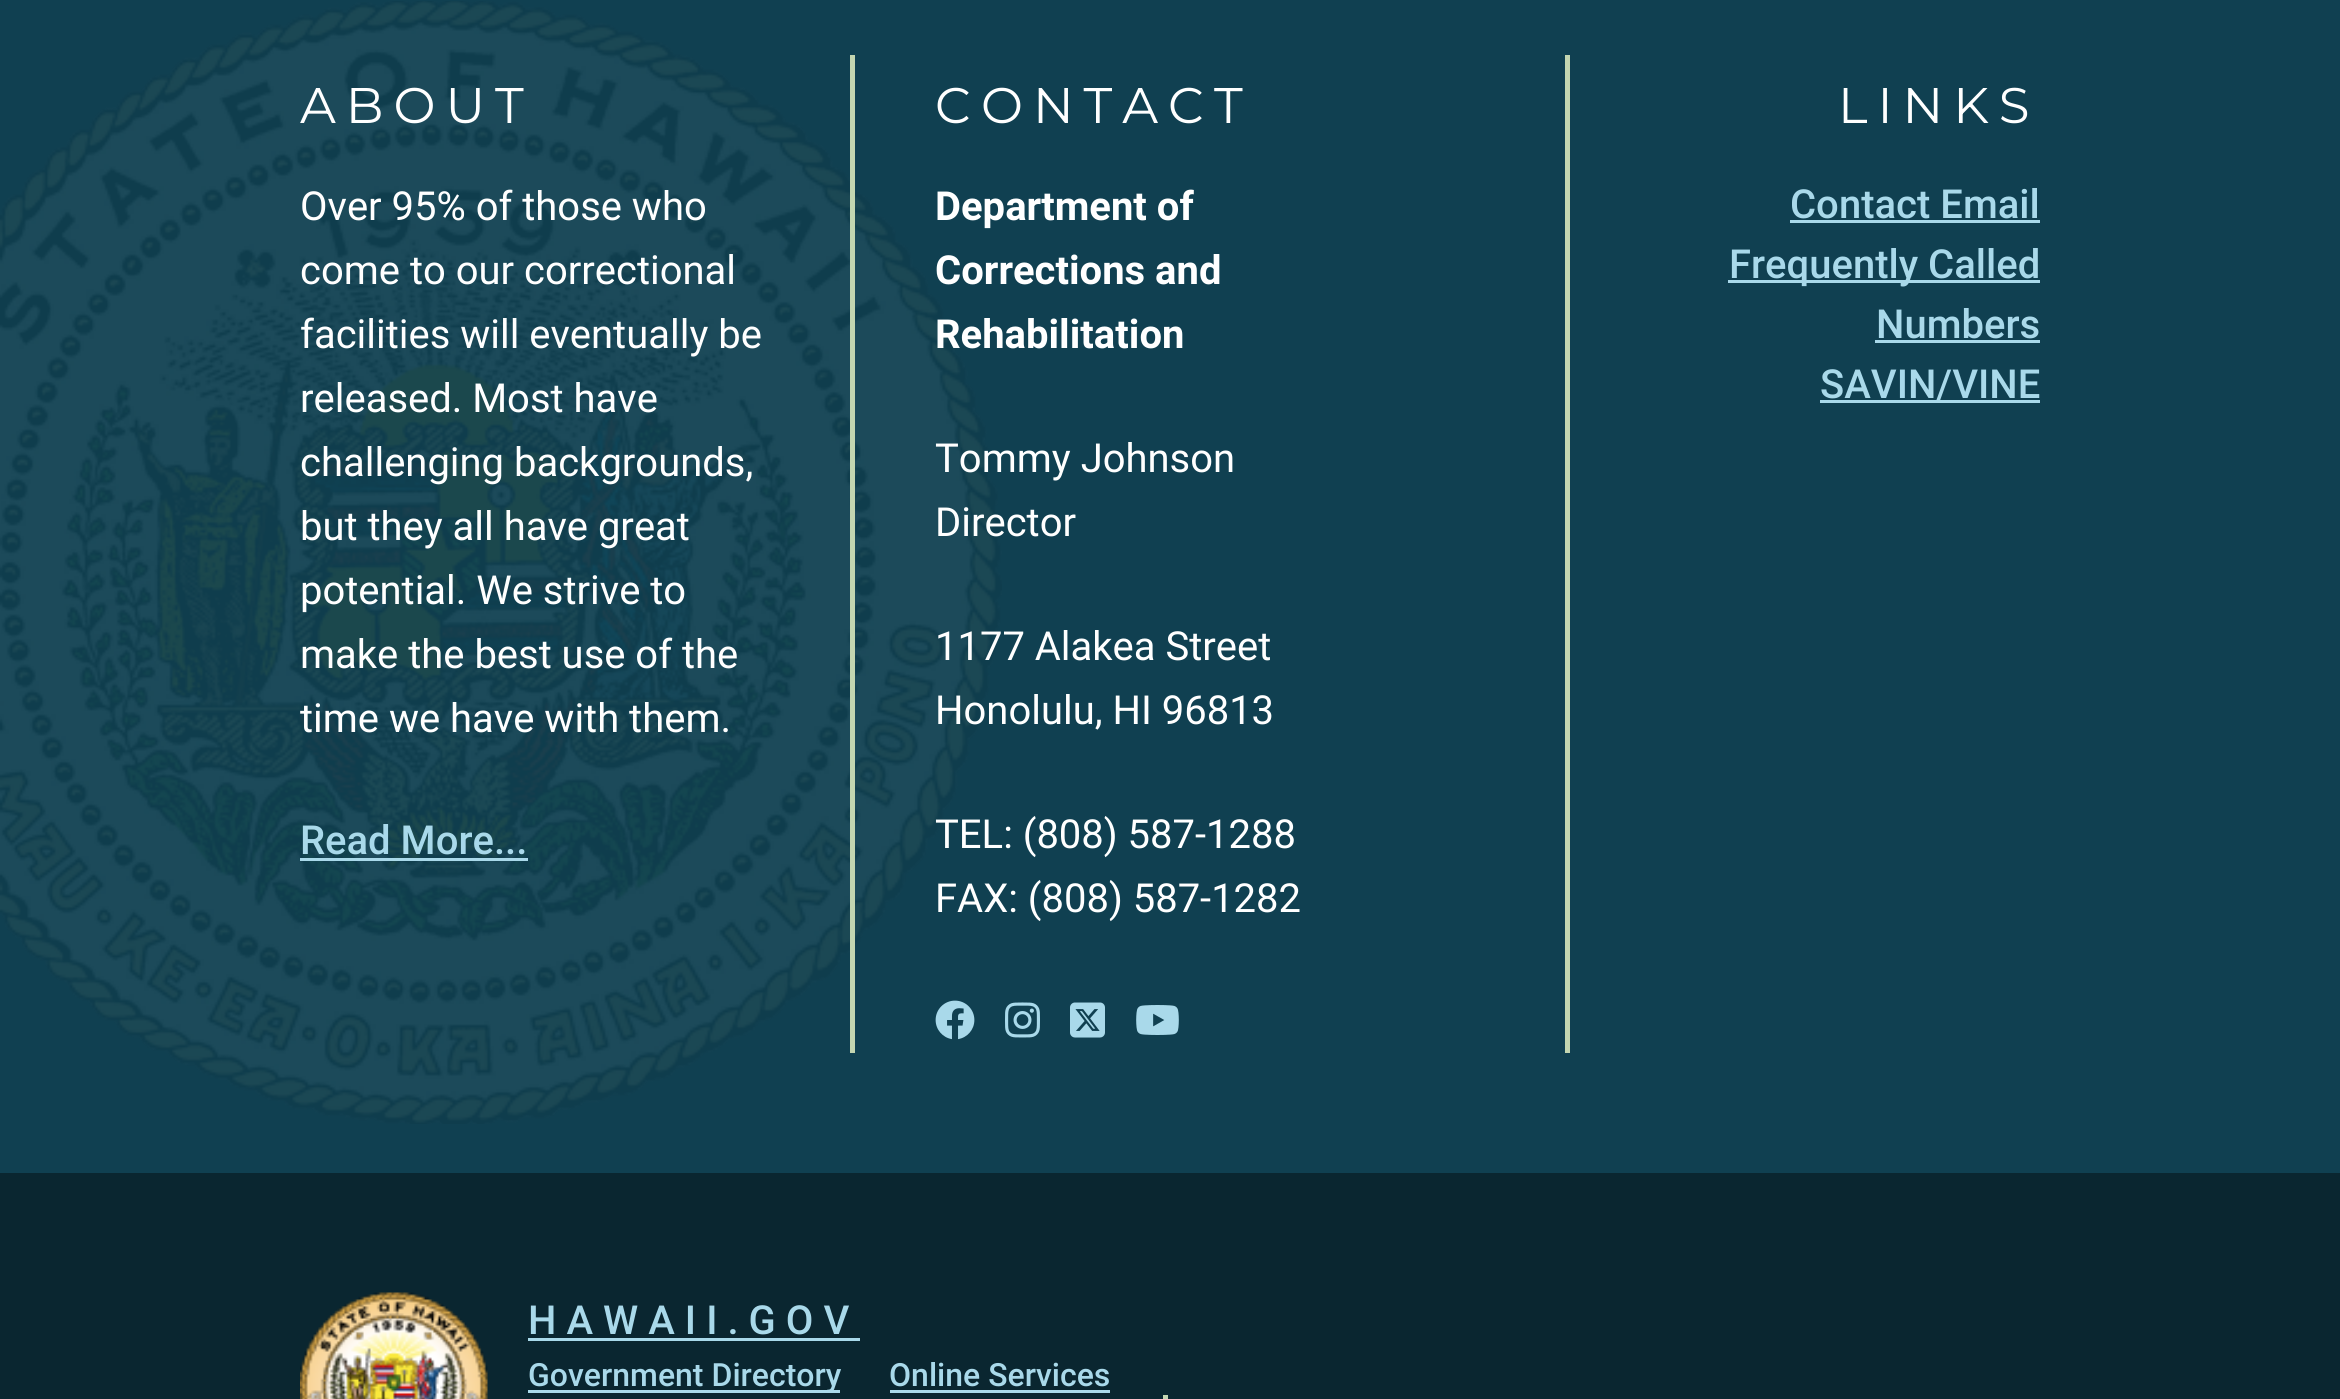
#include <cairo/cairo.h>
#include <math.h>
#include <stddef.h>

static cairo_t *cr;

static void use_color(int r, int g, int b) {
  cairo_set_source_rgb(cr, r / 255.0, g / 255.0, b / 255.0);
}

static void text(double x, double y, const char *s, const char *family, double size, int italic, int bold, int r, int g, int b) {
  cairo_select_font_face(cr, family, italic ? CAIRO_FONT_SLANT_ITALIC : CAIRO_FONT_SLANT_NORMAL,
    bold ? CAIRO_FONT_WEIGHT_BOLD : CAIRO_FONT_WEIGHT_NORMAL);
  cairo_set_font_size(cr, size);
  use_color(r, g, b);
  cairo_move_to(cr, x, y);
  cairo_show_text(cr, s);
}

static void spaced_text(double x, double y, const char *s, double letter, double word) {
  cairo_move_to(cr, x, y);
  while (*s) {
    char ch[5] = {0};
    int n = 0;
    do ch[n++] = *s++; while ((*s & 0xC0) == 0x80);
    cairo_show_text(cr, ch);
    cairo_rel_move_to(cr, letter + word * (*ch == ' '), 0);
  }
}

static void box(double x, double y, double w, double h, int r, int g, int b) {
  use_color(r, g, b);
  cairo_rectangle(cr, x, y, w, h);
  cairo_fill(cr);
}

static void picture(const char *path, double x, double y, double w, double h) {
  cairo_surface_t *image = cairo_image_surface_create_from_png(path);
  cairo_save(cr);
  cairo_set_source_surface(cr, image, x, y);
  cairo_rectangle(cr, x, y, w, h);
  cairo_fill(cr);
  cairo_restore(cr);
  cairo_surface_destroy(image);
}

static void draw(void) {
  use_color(16, 64, 81);
  cairo_paint(cr);
  picture("img_01.png", 0, 1, 1002, 1123);
  box(300, 858, 228, 3, 169, 217, 234);
  box(850, 55, 5, 998, 195, 214, 177);
  picture("img_02.png", 935, 1000, 40, 40);
  picture("img_03.png", 1005, 1002, 35, 36);
  picture("img_04.png", 1070, 1002, 35, 36);
  picture("img_05.png", 1136, 1005, 43, 30);
  box(1565, 55, 5, 998, 195, 214, 177);
  box(1790, 220, 250, 3, 169, 217, 234);
  box(1728, 280, 312, 3, 169, 217, 234);
  box(1875, 340, 165, 3, 169, 217, 234);
  box(1820, 400, 220, 3, 169, 217, 234);
  box(0, 1173, 2340, 226, 10, 38, 48);
  picture("img_06.png", 300, 1292, 188, 107);
  box(528, 1338, 332, 3, 169, 217, 234);
  box(528, 1390, 312, 3, 169, 217, 234);
  box(890, 1390, 220, 3, 169, 217, 234);
  box(1163, 1395, 5, 4, 195, 214, 177);
  cairo_select_font_face(cr, "Montserrat", CAIRO_FONT_SLANT_NORMAL, CAIRO_FONT_WEIGHT_NORMAL);
  cairo_set_font_size(cr, 50);
  use_color(255, 255, 255);
  spaced_text(300, 123, "ABOUT", 10, 0);
  text(300, 220, "Over 95% of those who", "Roboto", 40, 0, 0, 255, 255, 255);
  text(300, 284, "come to our correctional", "Roboto", 40, 0, 0, 255, 255, 255);
  text(300, 348, "facilities will eventually be", "Roboto", 40, 0, 0, 255, 255, 255);
  text(300, 412, "released. Most have", "Roboto", 40, 0, 0, 255, 255, 255);
  text(300, 476, "challenging backgrounds,", "Roboto", 40, 0, 0, 255, 255, 255);
  text(300, 540, "but they all have great", "Roboto", 40, 0, 0, 255, 255, 255);
  text(300, 604, "potential. We strive to", "Roboto", 40, 0, 0, 255, 255, 255);
  text(300, 668, "make the best use of the", "Roboto", 40, 0, 0, 255, 255, 255);
  text(300, 732, "time we have with them.", "Roboto", 40, 0, 0, 255, 255, 255);
  text(300, 854, "Read More...", "Roboto Medium", 40, 0, 0, 169, 217, 234);
  cairo_select_font_face(cr, "Montserrat", CAIRO_FONT_SLANT_NORMAL, CAIRO_FONT_WEIGHT_NORMAL);
  cairo_set_font_size(cr, 50);
  use_color(255, 255, 255);
  spaced_text(935, 123, "CONTACT", 10, 0);
  text(935, 220, "Department of", "Roboto", 40, 0, 1, 255, 255, 255);
  text(935, 284, "Corrections and", "Roboto", 40, 0, 1, 255, 255, 255);
  text(935, 348, "Rehabilitation", "Roboto", 40, 0, 1, 255, 255, 255);
  text(935, 472, "Tommy Johnson", "Roboto", 40, 0, 0, 255, 255, 255);
  text(935, 536, "Director", "Roboto", 40, 0, 0, 255, 255, 255);
  text(935, 660, "1177 Alakea Street", "Roboto", 40, 0, 0, 255, 255, 255);
  text(935, 724, "Honolulu, HI 96813", "Roboto", 40, 0, 0, 255, 255, 255);
  text(935, 848, "TEL: (808) 587-1288", "Roboto", 40, 0, 0, 255, 255, 255);
  text(935, 912, "FAX: (808) 587-1282", "Roboto", 40, 0, 0, 255, 255, 255);
  cairo_select_font_face(cr, "Montserrat", CAIRO_FONT_SLANT_NORMAL, CAIRO_FONT_WEIGHT_NORMAL);
  cairo_set_font_size(cr, 50);
  spaced_text(1838, 123, "LINKS", 10, 0);
  text(1790, 218, "Contact Email", "Roboto Medium", 40, 0, 0, 169, 217, 234);
  text(1729, 278, "Frequently Called", "Roboto Medium", 40, 0, 0, 169, 217, 234);
  text(1876, 338, "Numbers", "Roboto Medium", 40, 0, 0, 169, 217, 234);
  text(1820, 398, "SAVIN/VINE", "Roboto Medium", 40, 0, 0, 169, 217, 234);
  spaced_text(528, 1334, "HAWAII.GOV", 10, 0);
  text(528, 1386, "Government Directory", "Roboto Medium", 32, 0, 0, 169, 217, 234);
  text(889, 1386, "Online Services", "Roboto Medium", 32, 0, 0, 169, 217, 234);
}

int main(void) {
  cairo_surface_t *surface = cairo_image_surface_create(CAIRO_FORMAT_RGB24, 2340, 1399);
  cr = cairo_create(surface);
  cairo_font_options_t *options = cairo_font_options_create();
  cairo_font_options_set_hint_metrics(options, CAIRO_HINT_METRICS_OFF);
  cairo_font_options_set_hint_style(options, CAIRO_HINT_STYLE_NONE);
  cairo_set_font_options(cr, options);
  cairo_set_miter_limit(cr, 4);
  draw();
  cairo_surface_write_to_png(surface, "out.png");
  cairo_font_options_destroy(options);
  cairo_destroy(cr);
  cairo_surface_destroy(surface);
  return 0;
}
